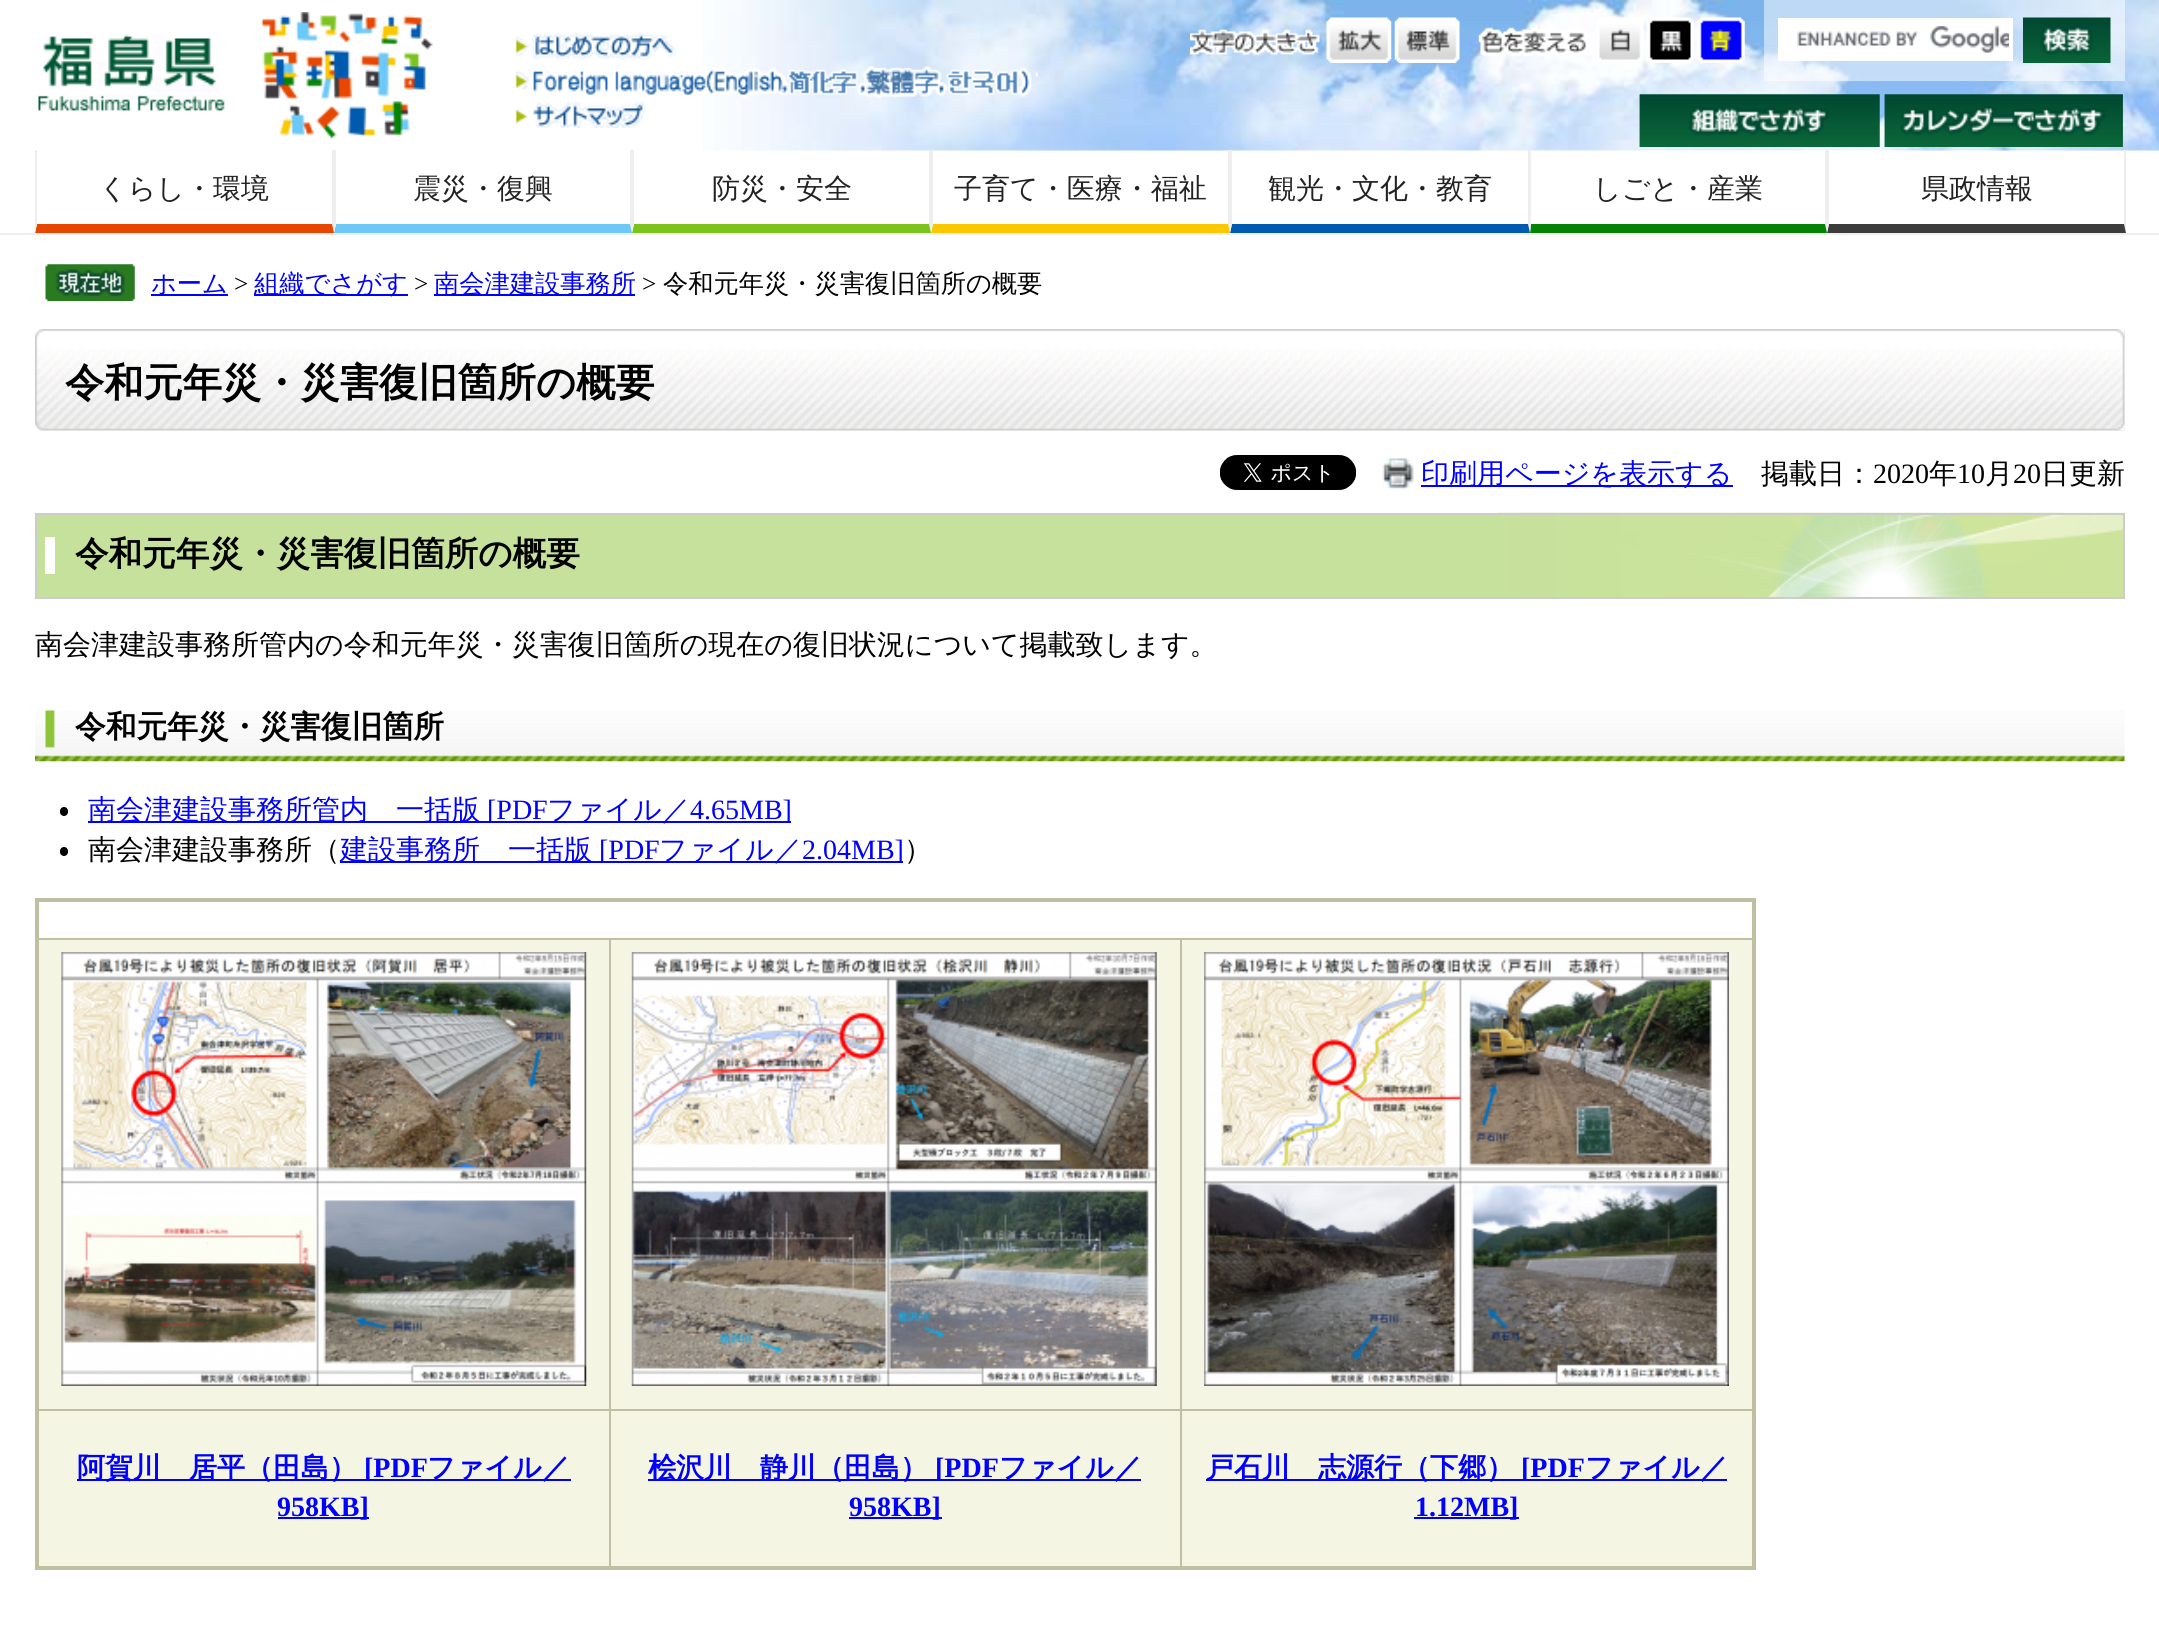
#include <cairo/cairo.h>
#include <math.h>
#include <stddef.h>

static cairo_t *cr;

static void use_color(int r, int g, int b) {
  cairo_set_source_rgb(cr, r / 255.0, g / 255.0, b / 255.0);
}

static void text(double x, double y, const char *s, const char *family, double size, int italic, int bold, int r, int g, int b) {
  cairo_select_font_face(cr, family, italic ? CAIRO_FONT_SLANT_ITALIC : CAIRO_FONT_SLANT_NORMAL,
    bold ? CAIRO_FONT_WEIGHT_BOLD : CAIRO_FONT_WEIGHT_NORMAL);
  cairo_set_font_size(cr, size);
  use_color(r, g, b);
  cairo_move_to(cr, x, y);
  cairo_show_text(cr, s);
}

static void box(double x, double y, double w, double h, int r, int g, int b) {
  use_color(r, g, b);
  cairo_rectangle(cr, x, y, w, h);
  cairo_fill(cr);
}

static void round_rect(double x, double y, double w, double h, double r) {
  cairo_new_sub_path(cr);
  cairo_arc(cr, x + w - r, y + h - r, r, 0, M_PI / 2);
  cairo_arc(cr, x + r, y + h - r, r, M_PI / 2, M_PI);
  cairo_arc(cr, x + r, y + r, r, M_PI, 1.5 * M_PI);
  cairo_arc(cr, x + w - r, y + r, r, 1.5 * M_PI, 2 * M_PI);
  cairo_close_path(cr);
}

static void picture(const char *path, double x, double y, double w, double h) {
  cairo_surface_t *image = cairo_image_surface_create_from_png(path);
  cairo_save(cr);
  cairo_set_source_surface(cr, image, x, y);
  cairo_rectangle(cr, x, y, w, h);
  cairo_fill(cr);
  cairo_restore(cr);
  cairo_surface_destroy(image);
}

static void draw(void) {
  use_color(255, 255, 255);
  cairo_paint(cr);
  picture("img_01.png", 702, 0, 1457, 151);
  picture("img_02.png", 262, 12, 171, 127);
  picture("img_03.png", 38, 34, 187, 77);
  picture("img_04.png", 514, 32, 162, 28);
  picture("img_05.png", 515, 32, 158, 26);
  picture("img_06.png", 514, 66, 524, 32);
  picture("img_07.png", 515, 66, 523, 32);
  picture("img_08.png", 515, 101, 131, 28);
  picture("img_09.png", 514, 103, 129, 25);
  picture("img_10.png", 1190, 29, 130, 26);
  picture("img_11.png", 1326, 17, 66, 46);
  picture("img_12.png", 1394, 17, 66, 46);
  picture("img_13.png", 1478, 27, 108, 30);
  picture("img_14.png", 1596, 17, 48, 46);
  picture("img_15.png", 1646, 17, 48, 46);
  picture("img_16.png", 1697, 17, 48, 46);
  cairo_set_source_rgba(cr, 1, 1, 1, 0.5);
  cairo_rectangle(cr, 1764, 0, 361, 81);
  cairo_fill(cr);
  box(1782, 22, 227, 35, 255, 255, 255);
  picture("img_17.png", 1797, 26, 212, 27);
  cairo_rectangle(cr, 1780, 20, 231, 39);
  cairo_set_line_width(cr, 4);
  cairo_stroke(cr);
  picture("img_18.png", 2023, 17, 88, 46);
  picture("img_19.png", 1639, 94, 241, 53);
  picture("img_20.png", 1639, 94, 241, 53);
  picture("img_21.png", 1884, 94, 239, 53);
  picture("img_22.png", 1884, 94, 239, 53);
  box(0, 233, 2159, 2, 238, 238, 238);
  cairo_new_path(cr);
  cairo_move_to(cr, 334, 150);
  cairo_line_to(cr, 334, 233);
  cairo_line_to(cr, 332, 224);
  cairo_line_to(cr, 332, 150);
  cairo_close_path(cr);
  cairo_fill(cr);
  use_color(231, 70, 0);
  cairo_new_path(cr);
  cairo_move_to(cr, 334, 233);
  cairo_line_to(cr, 35, 233);
  cairo_line_to(cr, 37, 224);
  cairo_line_to(cr, 332, 224);
  cairo_close_path(cr);
  cairo_fill(cr);
  use_color(238, 238, 238);
  cairo_new_path(cr);
  cairo_move_to(cr, 35, 233);
  cairo_line_to(cr, 35, 150);
  cairo_line_to(cr, 37, 150);
  cairo_line_to(cr, 37, 224);
  cairo_close_path(cr);
  cairo_fill(cr);
  cairo_new_path(cr);
  cairo_move_to(cr, 632, 150);
  cairo_line_to(cr, 632, 233);
  cairo_line_to(cr, 630, 224);
  cairo_line_to(cr, 630, 150);
  cairo_close_path(cr);
  cairo_fill(cr);
  use_color(109, 200, 245);
  cairo_new_path(cr);
  cairo_move_to(cr, 632, 233);
  cairo_line_to(cr, 334, 233);
  cairo_line_to(cr, 336, 224);
  cairo_line_to(cr, 630, 224);
  cairo_close_path(cr);
  cairo_fill(cr);
  use_color(238, 238, 238);
  cairo_new_path(cr);
  cairo_move_to(cr, 334, 233);
  cairo_line_to(cr, 334, 150);
  cairo_line_to(cr, 336, 150);
  cairo_line_to(cr, 336, 224);
  cairo_close_path(cr);
  cairo_fill(cr);
  cairo_new_path(cr);
  cairo_move_to(cr, 931, 150);
  cairo_line_to(cr, 931, 233);
  cairo_line_to(cr, 929, 224);
  cairo_line_to(cr, 929, 150);
  cairo_close_path(cr);
  cairo_fill(cr);
  use_color(126, 194, 29);
  cairo_new_path(cr);
  cairo_move_to(cr, 931, 233);
  cairo_line_to(cr, 632, 233);
  cairo_line_to(cr, 634, 224);
  cairo_line_to(cr, 929, 224);
  cairo_close_path(cr);
  cairo_fill(cr);
  use_color(238, 238, 238);
  cairo_new_path(cr);
  cairo_move_to(cr, 632, 233);
  cairo_line_to(cr, 632, 150);
  cairo_line_to(cr, 634, 150);
  cairo_line_to(cr, 634, 224);
  cairo_close_path(cr);
  cairo_fill(cr);
  cairo_new_path(cr);
  cairo_move_to(cr, 1230, 150);
  cairo_line_to(cr, 1230, 233);
  cairo_line_to(cr, 1228, 224);
  cairo_line_to(cr, 1228, 150);
  cairo_close_path(cr);
  cairo_fill(cr);
  use_color(249, 200, 1);
  cairo_new_path(cr);
  cairo_move_to(cr, 1230, 233);
  cairo_line_to(cr, 931, 233);
  cairo_line_to(cr, 933, 224);
  cairo_line_to(cr, 1228, 224);
  cairo_close_path(cr);
  cairo_fill(cr);
  use_color(238, 238, 238);
  cairo_new_path(cr);
  cairo_move_to(cr, 931, 233);
  cairo_line_to(cr, 931, 150);
  cairo_line_to(cr, 933, 150);
  cairo_line_to(cr, 933, 224);
  cairo_close_path(cr);
  cairo_fill(cr);
  cairo_new_path(cr);
  cairo_move_to(cr, 1530, 150);
  cairo_line_to(cr, 1530, 233);
  cairo_line_to(cr, 1528, 224);
  cairo_line_to(cr, 1528, 150);
  cairo_close_path(cr);
  cairo_fill(cr);
  use_color(0, 90, 176);
  cairo_new_path(cr);
  cairo_move_to(cr, 1530, 233);
  cairo_line_to(cr, 1230, 233);
  cairo_line_to(cr, 1232, 224);
  cairo_line_to(cr, 1528, 224);
  cairo_close_path(cr);
  cairo_fill(cr);
  use_color(238, 238, 238);
  cairo_new_path(cr);
  cairo_move_to(cr, 1230, 233);
  cairo_line_to(cr, 1230, 150);
  cairo_line_to(cr, 1232, 150);
  cairo_line_to(cr, 1232, 224);
  cairo_close_path(cr);
  cairo_fill(cr);
  cairo_new_path(cr);
  cairo_move_to(cr, 1827, 150);
  cairo_line_to(cr, 1827, 233);
  cairo_line_to(cr, 1825, 224);
  cairo_line_to(cr, 1825, 150);
  cairo_close_path(cr);
  cairo_fill(cr);
  use_color(4, 130, 4);
  cairo_new_path(cr);
  cairo_move_to(cr, 1827, 233);
  cairo_line_to(cr, 1530, 233);
  cairo_line_to(cr, 1531, 224);
  cairo_line_to(cr, 1825, 224);
  cairo_close_path(cr);
  cairo_fill(cr);
  use_color(238, 238, 238);
  cairo_new_path(cr);
  cairo_move_to(cr, 1530, 233);
  cairo_line_to(cr, 1530, 150);
  cairo_line_to(cr, 1531, 150);
  cairo_line_to(cr, 1531, 224);
  cairo_close_path(cr);
  cairo_fill(cr);
  cairo_new_path(cr);
  cairo_move_to(cr, 2126, 150);
  cairo_line_to(cr, 2126, 233);
  cairo_line_to(cr, 2124, 224);
  cairo_line_to(cr, 2124, 150);
  cairo_close_path(cr);
  cairo_fill(cr);
  use_color(60, 60, 60);
  cairo_new_path(cr);
  cairo_move_to(cr, 2126, 233);
  cairo_line_to(cr, 1827, 233);
  cairo_line_to(cr, 1829, 224);
  cairo_line_to(cr, 2124, 224);
  cairo_close_path(cr);
  cairo_fill(cr);
  use_color(238, 238, 238);
  cairo_new_path(cr);
  cairo_move_to(cr, 1827, 233);
  cairo_line_to(cr, 1827, 150);
  cairo_line_to(cr, 1829, 150);
  cairo_line_to(cr, 1829, 224);
  cairo_close_path(cr);
  cairo_fill(cr);
  picture("img_23.png", 45, 264, 90, 37);
  box(151, 294, 77, 2, 0, 0, 255);
  box(254, 294, 154, 2, 0, 0, 255);
  box(434, 294, 201, 2, 0, 0, 255);
  picture("img_24.png", 35, 329, 2090, 102);
  picture("img_25.png", 2117, 329, 8, 102);
  picture("img_26.png", 43, 329, 2082, 9);
  picture("img_27.png", 35, 329, 9, 9);
  picture("img_28.png", 1220, 455, 136, 35);
  picture("img_29.png", 1382, 458, 32, 31);
  box(1421, 485, 312, 2, 0, 0, 255);
  box(37, 515, 1461, 82, 198, 225, 156);
  picture("img_30.png", 1498, 512, 627, 85);
  box(45, 537, 10, 37, 255, 255, 255);
  cairo_rectangle(cr, 36, 514, 2088, 84);
  use_color(204, 204, 204);
  cairo_set_line_width(cr, 2);
  cairo_stroke(cr);
  picture("img_31.png", 35, 710, 2090, 52);
  use_color(0, 0, 0);
  round_rect(60, 807, 8, 9, 4);
  cairo_fill(cr);
  box(88, 821, 703, 2, 0, 0, 255);
  use_color(0, 0, 0);
  round_rect(60, 847, 8, 9, 4);
  cairo_fill(cr);
  box(340, 861, 563, 2, 0, 0, 255);
  box(35, 898, 1720, 4, 192, 191, 160);
  box(1180, 938, 574, 2, 192, 191, 160);
  box(1180, 1409, 574, 2, 192, 191, 160);
  box(1752, 898, 4, 672, 192, 191, 160);
  box(1180, 1409, 2, 161, 192, 191, 160);
  box(609, 1409, 572, 2, 192, 191, 160);
  box(609, 1409, 2, 161, 192, 191, 160);
  box(35, 1566, 1720, 4, 192, 191, 160);
  box(1180, 938, 2, 473, 192, 191, 160);
  box(609, 938, 572, 2, 192, 191, 160);
  box(37, 1409, 574, 2, 192, 191, 160);
  box(609, 938, 2, 473, 192, 191, 160);
  box(37, 938, 574, 2, 192, 191, 160);
  box(35, 898, 4, 672, 192, 191, 160);
  box(39, 940, 570, 469, 244, 245, 227);
  picture("img_32.png", 61, 952, 526, 434);
  box(611, 940, 569, 469, 244, 245, 227);
  picture("img_33.png", 631, 952, 526, 434);
  box(1182, 940, 570, 469, 244, 245, 227);
  picture("img_34.png", 1204, 952, 525, 434);
  box(39, 1411, 570, 155, 244, 245, 227);
  box(77, 1479, 494, 2, 0, 0, 255);
  box(278, 1517, 91, 2, 0, 0, 255);
  box(611, 1411, 569, 155, 244, 245, 227);
  box(648, 1479, 493, 2, 0, 0, 255);
  box(849, 1517, 93, 2, 0, 0, 255);
  box(1182, 1411, 570, 155, 244, 245, 227);
  box(1206, 1479, 521, 2, 0, 0, 255);
  box(1414, 1517, 105, 2, 0, 0, 255);
  text(99, 198, "くらし・環境", "WenQuanYi Zen Hei Medium", 28, 0, 0, 34, 34, 34);
  text(413, 198, "震災・復興", "WenQuanYi Zen Hei Medium", 28, 0, 0, 34, 34, 34);
  text(712, 198, "防災・安全", "WenQuanYi Zen Hei Medium", 28, 0, 0, 34, 34, 34);
  text(954, 198, "子育て・医療・福祉", "WenQuanYi Zen Hei Medium", 28, 0, 0, 34, 34, 34);
  text(1268, 198, "観光・文化・教育", "WenQuanYi Zen Hei Medium", 28, 0, 0, 34, 34, 34);
  text(1593, 198, "しごと・産業", "WenQuanYi Zen Hei Medium", 28, 0, 0, 34, 34, 34);
  text(1921, 198, "県政情報", "WenQuanYi Zen Hei Medium", 28, 0, 0, 34, 34, 34);
  text(151, 292, "ホーム", "WenQuanYi Zen Hei Medium", 25.25, 0, 0, 0, 0, 255);
  text(234, 292, ">", "Liberation Serif", 25.25, 0, 0, 0, 0, 0);
  text(254, 292, "組織でさがす", "WenQuanYi Zen Hei Medium", 25.25, 0, 0, 0, 0, 255);
  text(414, 292, ">", "Liberation Serif", 25.25, 0, 0, 0, 0, 0);
  text(434, 292, "南会津建設事務所", "WenQuanYi Zen Hei Medium", 25.25, 0, 0, 0, 0, 255);
  text(642, 292, ">", "Liberation Serif", 25.25, 0, 0, 0, 0, 0);
  text(663, 292, "令和元年災・災害復旧箇所の概要", "WenQuanYi Zen Hei Medium", 25.25, 0, 0, 0, 0, 0);
  text(65, 396, "令和元年災・災害復旧箇所の概要", "WenQuanYi Zen Hei", 39.25, 0, 1, 0, 0, 0);
  text(1421, 483, "印刷用ページを表示する", "WenQuanYi Zen Hei Medium", 28, 0, 0, 0, 0, 255);
  text(1761, 483, "掲載日：", "WenQuanYi Zen Hei Medium", 28, 0, 0, 0, 0, 0);
  text(1873, 483, "2020", "Liberation Serif", 28, 0, 0, 0, 0, 0);
  text(1929, 483, "年", "WenQuanYi Zen Hei Medium", 28, 0, 0, 0, 0, 0);
  text(1957, 483, "10", "Liberation Serif", 28, 0, 0, 0, 0, 0);
  text(1985, 483, "月", "WenQuanYi Zen Hei Medium", 28, 0, 0, 0, 0, 0);
  text(2013, 483, "20", "Liberation Serif", 28, 0, 0, 0, 0, 0);
  text(2041, 483, "日更新", "WenQuanYi Zen Hei Medium", 28, 0, 0, 0, 0, 0);
  text(75, 565, "令和元年災・災害復旧箇所の概要", "WenQuanYi Zen Hei", 33.6, 0, 1, 0, 0, 0);
  text(35, 654, "南会津建設事務所管内の令和元年災・災害復旧箇所の現在の復旧状況について掲載致します。", "WenQuanYi Zen Hei Medium", 28, 0, 0, 0, 0, 0);
  text(75, 737, "令和元年災・災害復旧箇所", "WenQuanYi Zen Hei", 30.75, 0, 1, 0, 0, 0);
  text(88, 819, "南会津建設事務所管内　一括版", "WenQuanYi Zen Hei Medium", 28, 0, 0, 0, 0, 255);
  text(487, 819, "[PDF", "Liberation Serif", 28, 0, 0, 0, 0, 255);
  text(547, 819, "ファイル／", "WenQuanYi Zen Hei Medium", 28, 0, 0, 0, 0, 255);
  text(690, 819, "4.65MB]", "Liberation Serif", 28, 0, 0, 0, 0, 255);
  text(88, 859, "南会津建設事務所（", "WenQuanYi Zen Hei Medium", 28, 0, 0, 0, 0, 0);
  text(340, 859, "建設事務所　一括版", "WenQuanYi Zen Hei Medium", 28, 0, 0, 0, 0, 255);
  text(599, 859, "[PDF", "Liberation Serif", 28, 0, 0, 0, 0, 255);
  text(659, 859, "ファイル／", "WenQuanYi Zen Hei Medium", 28, 0, 0, 0, 0, 255);
  text(802, 859, "2.04MB]", "Liberation Serif", 28, 0, 0, 0, 0, 255);
  text(904, 859, "）", "WenQuanYi Zen Hei Medium", 28, 0, 0, 0, 0, 0);
  text(77, 1477, "阿賀川　居平（田島）", "WenQuanYi Zen Hei", 28, 0, 1, 0, 0, 255);
  text(364, 1477, "[PDF", "Liberation Serif", 28, 0, 1, 0, 0, 255);
  text(427, 1477, "ファイル／", "WenQuanYi Zen Hei", 28, 0, 1, 0, 0, 255);
  text(277, 1516, "958KB]", "Liberation Serif", 28, 0, 1, 0, 0, 255);
  text(648, 1477, "桧沢川　静川（田島）", "WenQuanYi Zen Hei", 28, 0, 1, 0, 0, 255);
  text(935, 1477, "[PDF", "Liberation Serif", 28, 0, 1, 0, 0, 255);
  text(999, 1477, "ファイル／", "WenQuanYi Zen Hei", 28, 0, 1, 0, 0, 255);
  text(849, 1516, "958KB]", "Liberation Serif", 28, 0, 1, 0, 0, 255);
  text(1206, 1477, "戸石川　志源行（下郷）", "WenQuanYi Zen Hei", 28, 0, 1, 0, 0, 255);
  text(1521, 1477, "[PDF", "Liberation Serif", 28, 0, 1, 0, 0, 255);
  text(1585, 1477, "ファイル／", "WenQuanYi Zen Hei", 28, 0, 1, 0, 0, 255);
  text(1415, 1516, "1.12MB]", "Liberation Serif", 28, 0, 1, 0, 0, 255);
}

int main(void) {
  cairo_surface_t *surface = cairo_image_surface_create(CAIRO_FORMAT_RGB24, 2159, 1632);
  cr = cairo_create(surface);
  cairo_font_options_t *options = cairo_font_options_create();
  cairo_font_options_set_hint_metrics(options, CAIRO_HINT_METRICS_OFF);
  cairo_font_options_set_hint_style(options, CAIRO_HINT_STYLE_NONE);
  cairo_set_font_options(cr, options);
  cairo_set_miter_limit(cr, 4);
  draw();
  cairo_surface_write_to_png(surface, "out.png");
  cairo_font_options_destroy(options);
  cairo_destroy(cr);
  cairo_surface_destroy(surface);
  return 0;
}
